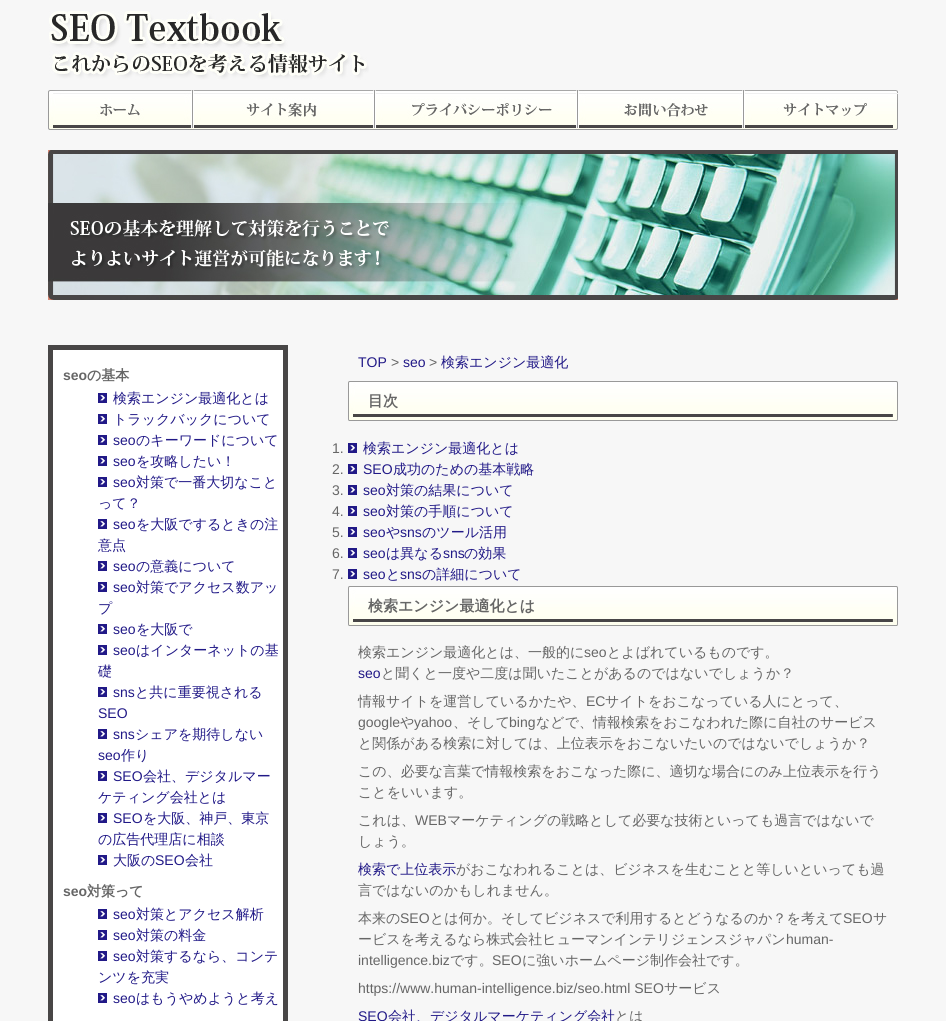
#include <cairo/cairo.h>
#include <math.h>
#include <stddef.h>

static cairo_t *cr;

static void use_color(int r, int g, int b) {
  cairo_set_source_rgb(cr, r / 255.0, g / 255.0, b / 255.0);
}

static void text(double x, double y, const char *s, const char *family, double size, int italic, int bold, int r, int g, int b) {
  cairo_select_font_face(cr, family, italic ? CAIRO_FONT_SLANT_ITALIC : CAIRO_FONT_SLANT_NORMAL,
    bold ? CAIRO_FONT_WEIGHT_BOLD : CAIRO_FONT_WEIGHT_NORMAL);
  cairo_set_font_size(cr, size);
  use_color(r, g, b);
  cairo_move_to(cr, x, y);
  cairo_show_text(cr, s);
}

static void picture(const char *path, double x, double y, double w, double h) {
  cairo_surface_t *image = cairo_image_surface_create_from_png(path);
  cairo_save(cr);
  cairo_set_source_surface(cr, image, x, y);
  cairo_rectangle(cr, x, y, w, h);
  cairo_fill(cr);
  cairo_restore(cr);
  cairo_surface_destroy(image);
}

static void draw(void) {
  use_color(247, 247, 247);
  cairo_paint(cr);
  picture("img_01.png", 49, 10, 320, 70);
  picture("img_02.png", 48, 90, 145, 40);
  picture("img_03.png", 193, 90, 182, 40);
  picture("img_04.png", 375, 90, 203, 40);
  picture("img_05.png", 578, 90, 166, 40);
  picture("img_06.png", 744, 90, 154, 40);
  picture("img_07.png", 48, 150, 850, 150);
  use_color(255, 255, 255);
  cairo_rectangle(cr, 50.5, 347.5, 235, 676);
  cairo_fill_preserve(cr);
  use_color(72, 70, 70);
  cairo_set_line_width(cr, 5);
  cairo_stroke(cr);
  picture("img_08.png", 98, 393, 9, 10);
  picture("img_08.png", 98, 414, 9, 10);
  picture("img_08.png", 98, 435, 9, 10);
  picture("img_08.png", 98, 456, 9, 10);
  picture("img_08.png", 98, 477, 9, 10);
  picture("img_08.png", 98, 519, 9, 10);
  picture("img_08.png", 98, 561, 9, 10);
  picture("img_08.png", 98, 582, 9, 10);
  picture("img_08.png", 98, 624, 9, 10);
  picture("img_08.png", 98, 645, 9, 10);
  picture("img_08.png", 98, 687, 9, 10);
  picture("img_08.png", 98, 729, 9, 10);
  picture("img_08.png", 98, 771, 9, 10);
  picture("img_08.png", 98, 813, 9, 10);
  picture("img_08.png", 98, 855, 9, 10);
  picture("img_08.png", 98, 909, 9, 10);
  picture("img_08.png", 98, 930, 9, 10);
  picture("img_08.png", 98, 951, 9, 10);
  picture("img_08.png", 98, 993, 9, 10);
  picture("img_09.png", 348, 381, 550, 40);
  picture("img_08.png", 348, 443, 9, 10);
  picture("img_08.png", 348, 464, 9, 10);
  picture("img_08.png", 348, 485, 9, 10);
  picture("img_08.png", 348, 506, 9, 10);
  picture("img_08.png", 348, 527, 9, 10);
  picture("img_08.png", 348, 548, 9, 10);
  picture("img_08.png", 348, 569, 9, 10);
  picture("img_09.png", 348, 586, 550, 40);
  text(63, 380, "seo", "Liberation Sans", 14, 0, 1, 102, 102, 102);
  text(87, 380, "の基本", "WenQuanYi Zen Hei", 14, 0, 1, 102, 102, 102);
  text(113, 403, "検索エンジン最適化とは", "WenQuanYi Zen Hei Medium", 14, 0, 0, 33, 25, 135);
  text(113, 424, "トラックバックについて", "WenQuanYi Zen Hei Medium", 14, 0, 0, 33, 25, 135);
  text(113, 445, "seo", "Liberation Sans", 14, 0, 0, 33, 25, 135);
  text(136, 445, "のキーワードについて", "WenQuanYi Zen Hei Medium", 14, 0, 0, 33, 25, 135);
  text(113, 466, "seo", "Liberation Sans", 14, 0, 0, 33, 25, 135);
  text(136, 466, "を攻略したい！", "WenQuanYi Zen Hei Medium", 14, 0, 0, 33, 25, 135);
  text(113, 487, "seo", "Liberation Sans", 14, 0, 0, 33, 25, 135);
  text(136, 487, "対策で一番大切なこと", "WenQuanYi Zen Hei Medium", 14, 0, 0, 33, 25, 135);
  text(98, 508, "って？", "WenQuanYi Zen Hei Medium", 14, 0, 0, 33, 25, 135);
  text(113, 529, "seo", "Liberation Sans", 14, 0, 0, 33, 25, 135);
  text(136, 529, "を大阪でするときの注", "WenQuanYi Zen Hei Medium", 14, 0, 0, 33, 25, 135);
  text(98, 550, "意点", "WenQuanYi Zen Hei Medium", 14, 0, 0, 33, 25, 135);
  text(113, 571, "seo", "Liberation Sans", 14, 0, 0, 33, 25, 135);
  text(136, 571, "の意義について", "WenQuanYi Zen Hei Medium", 14, 0, 0, 33, 25, 135);
  text(113, 592, "seo", "Liberation Sans", 14, 0, 0, 33, 25, 135);
  text(136, 592, "対策でアクセス数アッ", "WenQuanYi Zen Hei Medium", 14, 0, 0, 33, 25, 135);
  text(98, 613, "プ", "WenQuanYi Zen Hei Medium", 14, 0, 0, 33, 25, 135);
  text(113, 634, "seo", "Liberation Sans", 14, 0, 0, 33, 25, 135);
  text(136, 634, "を大阪で", "WenQuanYi Zen Hei Medium", 14, 0, 0, 33, 25, 135);
  text(113, 655, "seo", "Liberation Sans", 14, 0, 0, 33, 25, 135);
  text(136, 655, "はインターネットの基", "WenQuanYi Zen Hei Medium", 14, 0, 0, 33, 25, 135);
  text(98, 676, "礎", "WenQuanYi Zen Hei Medium", 14, 0, 0, 33, 25, 135);
  text(113, 697, "sns", "Liberation Sans", 14, 0, 0, 33, 25, 135);
  text(135, 697, "と共に重要視される", "WenQuanYi Zen Hei Medium", 14, 0, 0, 33, 25, 135);
  text(98, 718, "SEO", "Liberation Sans", 14, 0, 0, 33, 25, 135);
  text(113, 739, "sns", "Liberation Sans", 14, 0, 0, 33, 25, 135);
  text(135, 739, "シェアを期待しない", "WenQuanYi Zen Hei Medium", 14, 0, 0, 33, 25, 135);
  text(98, 760, "seo", "Liberation Sans", 14, 0, 0, 33, 25, 135);
  text(121, 760, "作り", "WenQuanYi Zen Hei Medium", 14, 0, 0, 33, 25, 135);
  text(113, 781, "SEO", "Liberation Sans", 14, 0, 0, 33, 25, 135);
  text(143, 781, "会社、デジタルマー", "WenQuanYi Zen Hei Medium", 14, 0, 0, 33, 25, 135);
  text(98, 802, "ケティング会社とは", "WenQuanYi Zen Hei Medium", 14, 0, 0, 33, 25, 135);
  text(113, 823, "SEO", "Liberation Sans", 14, 0, 0, 33, 25, 135);
  text(143, 823, "を大阪、神戸、東京", "WenQuanYi Zen Hei Medium", 14, 0, 0, 33, 25, 135);
  text(98, 844, "の広告代理店に相談", "WenQuanYi Zen Hei Medium", 14, 0, 0, 33, 25, 135);
  text(113, 865, "大阪の", "WenQuanYi Zen Hei Medium", 14, 0, 0, 33, 25, 135);
  text(155, 865, "SEO", "Liberation Sans", 14, 0, 0, 33, 25, 135);
  text(185, 865, "会社", "WenQuanYi Zen Hei Medium", 14, 0, 0, 33, 25, 135);
  text(63, 896, "seo", "Liberation Sans", 14, 0, 1, 102, 102, 102);
  text(87, 896, "対策って", "WenQuanYi Zen Hei", 14, 0, 1, 102, 102, 102);
  text(113, 919, "seo", "Liberation Sans", 14, 0, 0, 33, 25, 135);
  text(136, 919, "対策とアクセス解析", "WenQuanYi Zen Hei Medium", 14, 0, 0, 33, 25, 135);
  text(113, 940, "seo", "Liberation Sans", 14, 0, 0, 33, 25, 135);
  text(136, 940, "対策の料金", "WenQuanYi Zen Hei Medium", 14, 0, 0, 33, 25, 135);
  text(113, 961, "seo", "Liberation Sans", 14, 0, 0, 33, 25, 135);
  text(136, 961, "対策するなら、コンテ", "WenQuanYi Zen Hei Medium", 14, 0, 0, 33, 25, 135);
  text(98, 982, "ンツを充実", "WenQuanYi Zen Hei Medium", 14, 0, 0, 33, 25, 135);
  text(113, 1003, "seo", "Liberation Sans", 14, 0, 0, 33, 25, 135);
  text(136, 1003, "はもうやめようと考え", "WenQuanYi Zen Hei Medium", 14, 0, 0, 33, 25, 135);
  text(358, 367, "TOP", "Liberation Sans", 14, 0, 0, 33, 25, 135);
  text(391, 367, ">", "Liberation Sans", 14, 0, 0, 102, 102, 102);
  text(403, 367, "seo", "Liberation Sans", 14, 0, 0, 33, 25, 135);
  text(429, 367, ">", "Liberation Sans", 14, 0, 0, 102, 102, 102);
  text(441, 367, "検索エンジン最適化", "WenQuanYi Zen Hei Medium", 14, 0, 0, 33, 25, 135);
  text(368, 406, "目次", "WenQuanYi Zen Hei", 15, 0, 1, 102, 102, 102);
  text(332, 453, "1.", "Liberation Sans", 14, 0, 0, 102, 102, 102);
  text(363, 453, "検索エンジン最適化とは", "WenQuanYi Zen Hei Medium", 14, 0, 0, 33, 25, 135);
  text(332, 474, "2.", "Liberation Sans", 14, 0, 0, 102, 102, 102);
  text(363, 474, "SEO", "Liberation Sans", 14, 0, 0, 33, 25, 135);
  text(393, 474, "成功のための基本戦略", "WenQuanYi Zen Hei Medium", 14, 0, 0, 33, 25, 135);
  text(332, 495, "3.", "Liberation Sans", 14, 0, 0, 102, 102, 102);
  text(363, 495, "seo", "Liberation Sans", 14, 0, 0, 33, 25, 135);
  text(386, 495, "対策の結果について", "WenQuanYi Zen Hei Medium", 14, 0, 0, 33, 25, 135);
  text(332, 516, "4.", "Liberation Sans", 14, 0, 0, 102, 102, 102);
  text(363, 516, "seo", "Liberation Sans", 14, 0, 0, 33, 25, 135);
  text(386, 516, "対策の手順について", "WenQuanYi Zen Hei Medium", 14, 0, 0, 33, 25, 135);
  text(332, 537, "5.", "Liberation Sans", 14, 0, 0, 102, 102, 102);
  text(363, 537, "seo", "Liberation Sans", 14, 0, 0, 33, 25, 135);
  text(386, 537, "や", "WenQuanYi Zen Hei Medium", 14, 0, 0, 33, 25, 135);
  text(400, 537, "sns", "Liberation Sans", 14, 0, 0, 33, 25, 135);
  text(422, 537, "のツール活用", "WenQuanYi Zen Hei Medium", 14, 0, 0, 33, 25, 135);
  text(332, 558, "6.", "Liberation Sans", 14, 0, 0, 102, 102, 102);
  text(363, 558, "seo", "Liberation Sans", 14, 0, 0, 33, 25, 135);
  text(386, 558, "は異なる", "WenQuanYi Zen Hei Medium", 14, 0, 0, 33, 25, 135);
  text(443, 558, "sns", "Liberation Sans", 14, 0, 0, 33, 25, 135);
  text(464, 558, "の効果", "WenQuanYi Zen Hei Medium", 14, 0, 0, 33, 25, 135);
  text(332, 579, "7.", "Liberation Sans", 14, 0, 0, 102, 102, 102);
  text(363, 579, "seo", "Liberation Sans", 14, 0, 0, 33, 25, 135);
  text(386, 579, "と", "WenQuanYi Zen Hei Medium", 14, 0, 0, 33, 25, 135);
  text(400, 579, "sns", "Liberation Sans", 14, 0, 0, 33, 25, 135);
  text(422, 579, "の詳細について", "WenQuanYi Zen Hei Medium", 14, 0, 0, 33, 25, 135);
  text(368, 611, "検索エンジン最適化とは", "WenQuanYi Zen Hei", 15, 0, 1, 102, 102, 102);
  text(358, 657, "検索エンジン最適化とは、一般的に", "WenQuanYi Zen Hei Medium", 14, 0, 0, 102, 102, 102);
  text(584, 657, "seo", "Liberation Sans", 14, 0, 0, 102, 102, 102);
  text(607, 657, "とよばれているものです。", "WenQuanYi Zen Hei Medium", 14, 0, 0, 102, 102, 102);
  text(358, 678, "seo", "Liberation Sans", 14, 0, 0, 33, 25, 135);
  text(381, 678, "と聞くと一度や二度は聞いたことがあるのではないでしょうか？", "WenQuanYi Zen Hei Medium", 14, 0, 0, 102, 102, 102);
  text(358, 706, "情報サイトを運営しているかたや、", "WenQuanYi Zen Hei Medium", 14, 0, 0, 102, 102, 102);
  text(586, 706, "EC", "Liberation Sans", 14, 0, 0, 102, 102, 102);
  text(605, 706, "サイトをおこなっている人にとって、", "WenQuanYi Zen Hei Medium", 14, 0, 0, 102, 102, 102);
  text(358, 727, "google", "Liberation Sans", 14, 0, 0, 102, 102, 102);
  text(400, 727, "や", "WenQuanYi Zen Hei Medium", 14, 0, 0, 102, 102, 102);
  text(414, 727, "yahoo", "Liberation Sans", 14, 0, 0, 102, 102, 102);
  text(453, 727, "、そして", "WenQuanYi Zen Hei Medium", 14, 0, 0, 102, 102, 102);
  text(509, 727, "bing", "Liberation Sans", 14, 0, 0, 102, 102, 102);
  text(536, 727, "などで、情報検索をおこなわれた際に自社のサービス", "WenQuanYi Zen Hei Medium", 14, 0, 0, 102, 102, 102);
  text(358, 748, "と関係がある検索に対しては、上位表示をおこないたいのではないでしょうか？", "WenQuanYi Zen Hei Medium", 14, 0, 0, 102, 102, 102);
  text(358, 776, "この、必要な言葉で情報検索をおこなった際に、適切な場合にのみ上位表示を行う", "WenQuanYi Zen Hei Medium", 14, 0, 0, 102, 102, 102);
  text(358, 797, "ことをいいます。", "WenQuanYi Zen Hei Medium", 14, 0, 0, 102, 102, 102);
  text(358, 825, "これは、", "WenQuanYi Zen Hei Medium", 14, 0, 0, 102, 102, 102);
  text(415, 825, "WEB", "Liberation Sans", 14, 0, 0, 102, 102, 102);
  text(447, 825, "マーケティングの戦略として必要な技術といっても過言ではないで", "WenQuanYi Zen Hei Medium", 14, 0, 0, 102, 102, 102);
  text(358, 846, "しょう。", "WenQuanYi Zen Hei Medium", 14, 0, 0, 102, 102, 102);
  text(358, 874, "検索で上位表示", "WenQuanYi Zen Hei Medium", 14, 0, 0, 33, 25, 135);
  text(456, 874, "がおこなわれることは、ビジネスを生むことと等しいといっても過", "WenQuanYi Zen Hei Medium", 14, 0, 0, 102, 102, 102);
  text(358, 895, "言ではないのかもしれません。", "WenQuanYi Zen Hei Medium", 14, 0, 0, 102, 102, 102);
  text(358, 923, "本来の", "WenQuanYi Zen Hei Medium", 14, 0, 0, 102, 102, 102);
  text(400, 923, "SEO", "Liberation Sans", 14, 0, 0, 102, 102, 102);
  text(430, 923, "とは何か。そしてビジネスで利用するとどうなるのか？を考えて", "WenQuanYi Zen Hei Medium", 14, 0, 0, 102, 102, 102);
  text(843, 923, "SEO", "Liberation Sans", 14, 0, 0, 102, 102, 102);
  text(873, 923, "サ", "WenQuanYi Zen Hei Medium", 14, 0, 0, 102, 102, 102);
  text(358, 944, "ービスを考えるなら株式会社ヒューマンインテリジェンスジャパン", "WenQuanYi Zen Hei Medium", 14, 0, 0, 102, 102, 102);
  text(786, 944, "human-", "Liberation Sans", 14, 0, 0, 102, 102, 102);
  text(358, 965, "intelligence.biz", "Liberation Sans", 14, 0, 0, 102, 102, 102);
  text(450, 965, "です。", "WenQuanYi Zen Hei Medium", 14, 0, 0, 102, 102, 102);
  text(492, 965, "SEO", "Liberation Sans", 14, 0, 0, 102, 102, 102);
  text(522, 965, "に強いホームページ制作会社です。", "WenQuanYi Zen Hei Medium", 14, 0, 0, 102, 102, 102);
  text(358, 993, "https://www.human-intelligence.biz/seo.html SEO", "Liberation Sans", 14, 0, 0, 102, 102, 102);
  text(664, 993, "サービス", "WenQuanYi Zen Hei Medium", 14, 0, 0, 102, 102, 102);
  text(358, 1021, "SEO", "Liberation Sans", 14, 0, 0, 33, 25, 135);
  text(388, 1021, "会社、デジタルマーケティング会社", "WenQuanYi Zen Hei Medium", 14, 0, 0, 33, 25, 135);
  text(615, 1021, "とは", "WenQuanYi Zen Hei Medium", 14, 0, 0, 102, 102, 102);
}

int main(void) {
  cairo_surface_t *surface = cairo_image_surface_create(CAIRO_FORMAT_RGB24, 946, 1021);
  cr = cairo_create(surface);
  cairo_font_options_t *options = cairo_font_options_create();
  cairo_font_options_set_hint_metrics(options, CAIRO_HINT_METRICS_OFF);
  cairo_font_options_set_hint_style(options, CAIRO_HINT_STYLE_NONE);
  cairo_set_font_options(cr, options);
  cairo_set_miter_limit(cr, 4);
  draw();
  cairo_surface_write_to_png(surface, "out.png");
  cairo_font_options_destroy(options);
  cairo_destroy(cr);
  cairo_surface_destroy(surface);
  return 0;
}
